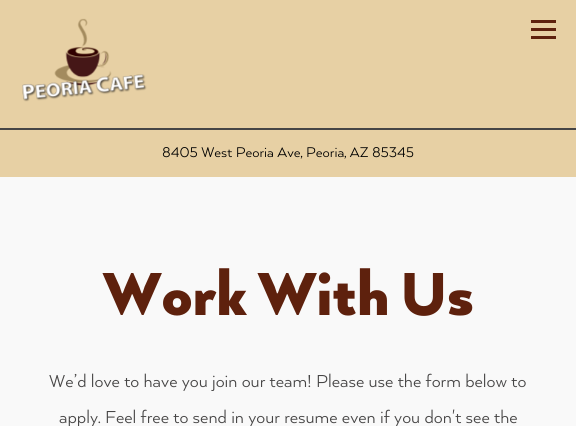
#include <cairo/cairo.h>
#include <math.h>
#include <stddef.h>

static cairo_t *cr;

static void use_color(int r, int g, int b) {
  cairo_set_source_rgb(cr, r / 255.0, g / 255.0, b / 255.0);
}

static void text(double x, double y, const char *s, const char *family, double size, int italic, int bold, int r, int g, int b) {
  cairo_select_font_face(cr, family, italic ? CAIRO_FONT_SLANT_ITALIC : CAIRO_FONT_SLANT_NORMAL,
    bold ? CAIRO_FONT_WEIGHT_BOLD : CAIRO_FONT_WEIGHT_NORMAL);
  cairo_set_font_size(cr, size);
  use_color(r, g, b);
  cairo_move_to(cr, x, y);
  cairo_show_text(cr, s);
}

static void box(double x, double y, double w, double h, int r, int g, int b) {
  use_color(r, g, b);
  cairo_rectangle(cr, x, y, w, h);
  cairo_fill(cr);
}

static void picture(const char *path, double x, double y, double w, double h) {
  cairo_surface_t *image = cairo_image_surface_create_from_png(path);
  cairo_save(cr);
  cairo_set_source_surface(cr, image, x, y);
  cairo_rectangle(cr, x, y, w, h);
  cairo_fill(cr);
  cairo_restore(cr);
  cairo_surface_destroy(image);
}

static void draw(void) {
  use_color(249, 249, 249);
  cairo_paint(cr);
  box(0, 0, 576, 177, 231, 208, 164);
  picture("img_01.png", 22, 18, 125, 84);
  box(531, 20, 25, 3, 94, 33, 13);
  box(531, 28, 25, 3, 94, 33, 13);
  box(531, 36, 25, 3, 94, 33, 13);
  box(0, 128, 576, 2, 70, 69, 69);
  text(162, 157, "8405 West Peoria Ave, Peoria, AZ 85345", "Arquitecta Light", 16.25, 0, 0, 0, 0, 0);
  text(103, 315, "Work With Us", "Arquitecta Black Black", 70, 0, 0, 94, 33, 13);
  text(49, 387, "We’d love to have you join our team! Please use the form below to", "Arquitecta Light", 20, 0, 0, 70, 69, 69);
  text(59, 423, "apply. Feel free to send in your resume even if you don't see the", "Arquitecta Light", 20, 0, 0, 70, 69, 69);
}

int main(void) {
  cairo_surface_t *surface = cairo_image_surface_create(CAIRO_FORMAT_RGB24, 576, 426);
  cr = cairo_create(surface);
  cairo_font_options_t *options = cairo_font_options_create();
  cairo_font_options_set_hint_metrics(options, CAIRO_HINT_METRICS_OFF);
  cairo_font_options_set_hint_style(options, CAIRO_HINT_STYLE_NONE);
  cairo_set_font_options(cr, options);
  cairo_set_miter_limit(cr, 4);
  draw();
  cairo_surface_write_to_png(surface, "out.png");
  cairo_font_options_destroy(options);
  cairo_destroy(cr);
  cairo_surface_destroy(surface);
  return 0;
}
